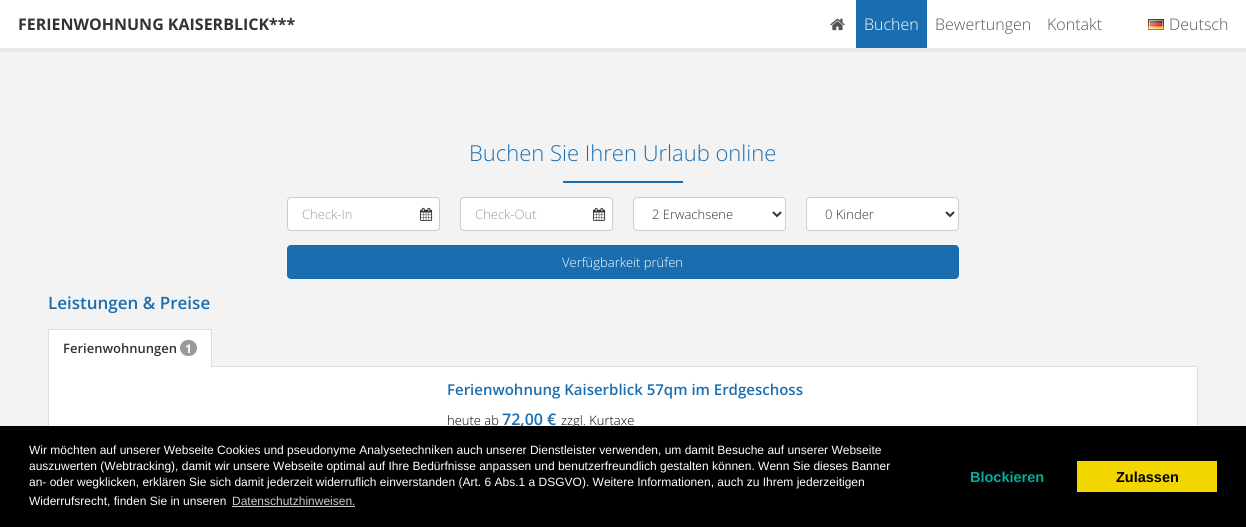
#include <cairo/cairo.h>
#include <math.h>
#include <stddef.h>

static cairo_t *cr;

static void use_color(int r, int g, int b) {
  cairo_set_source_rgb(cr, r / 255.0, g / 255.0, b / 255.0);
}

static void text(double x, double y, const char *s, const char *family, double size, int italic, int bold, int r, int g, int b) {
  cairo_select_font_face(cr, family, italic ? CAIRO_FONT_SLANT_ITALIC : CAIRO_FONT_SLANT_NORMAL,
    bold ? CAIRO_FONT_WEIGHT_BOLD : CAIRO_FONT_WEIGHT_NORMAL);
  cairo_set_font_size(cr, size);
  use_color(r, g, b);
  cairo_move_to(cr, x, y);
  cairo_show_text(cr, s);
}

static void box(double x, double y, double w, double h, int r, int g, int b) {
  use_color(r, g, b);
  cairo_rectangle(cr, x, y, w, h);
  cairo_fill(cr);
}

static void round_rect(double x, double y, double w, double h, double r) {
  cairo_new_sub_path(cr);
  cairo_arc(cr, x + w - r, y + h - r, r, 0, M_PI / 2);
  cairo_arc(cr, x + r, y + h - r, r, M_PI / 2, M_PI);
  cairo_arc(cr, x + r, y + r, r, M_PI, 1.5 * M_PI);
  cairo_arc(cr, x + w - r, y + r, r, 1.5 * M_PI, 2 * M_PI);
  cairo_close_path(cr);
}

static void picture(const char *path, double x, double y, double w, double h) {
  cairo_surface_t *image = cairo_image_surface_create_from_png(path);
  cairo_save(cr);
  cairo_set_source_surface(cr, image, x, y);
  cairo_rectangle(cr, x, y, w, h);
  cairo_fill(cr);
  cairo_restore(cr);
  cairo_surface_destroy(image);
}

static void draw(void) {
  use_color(243, 243, 243);
  cairo_paint(cr);
  box(0, 0, 1246, 48, 255, 255, 255);
  box(0, 48, 1246, 4, 232, 232, 232);
  picture("img_01.png", 830, 18, 15, 13);
  box(856, 0, 71, 48, 26, 110, 175);
  picture("img_02.png", 1148, 19, 16, 11);
  box(563, 181, 120, 2, 26, 110, 175);
  use_color(255, 255, 255);
  round_rect(287.5, 197.5, 152, 33, 3.5);
  cairo_fill_preserve(cr);
  use_color(204, 204, 204);
  cairo_set_line_width(cr, 1);
  cairo_stroke(cr);
  picture("img_03.png", 420, 207, 13, 14);
  use_color(255, 255, 255);
  round_rect(460.5, 197.5, 152, 33, 3.5);
  cairo_fill_preserve(cr);
  use_color(204, 204, 204);
  cairo_stroke(cr);
  picture("img_03.png", 593, 207, 13, 14);
  use_color(255, 255, 255);
  round_rect(633.5, 197.5, 152, 33, 3.5);
  cairo_fill_preserve(cr);
  use_color(204, 204, 204);
  cairo_stroke(cr);
  cairo_new_path(cr);
  cairo_move_to(cr, 773, 212);
  cairo_line_to(cr, 777, 216);
  cairo_line_to(cr, 781, 212);
  use_color(51, 51, 51);
  cairo_set_line_width(cr, 2);
  cairo_stroke(cr);
  use_color(255, 255, 255);
  round_rect(806.5, 197.5, 152, 33, 3.5);
  cairo_fill_preserve(cr);
  use_color(204, 204, 204);
  cairo_set_line_width(cr, 1);
  cairo_stroke(cr);
  cairo_new_path(cr);
  cairo_move_to(cr, 946, 212);
  cairo_line_to(cr, 950, 216);
  cairo_line_to(cr, 954, 212);
  use_color(51, 51, 51);
  cairo_set_line_width(cr, 2);
  cairo_stroke(cr);
  use_color(26, 110, 175);
  round_rect(287, 245, 672, 34, 4);
  cairo_fill(cr);
  cairo_rectangle(cr, 48.5, 366.5, 1149, 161);
  use_color(221, 221, 221);
  cairo_set_line_width(cr, 1);
  cairo_stroke(cr);
  box(49, 330, 162, 37, 255, 255, 255);
  box(48, 329, 164, 1, 221, 221, 221);
  box(211, 329, 1, 38, 221, 221, 221);
  box(48, 329, 1, 38, 221, 221, 221);
  use_color(153, 153, 153);
  round_rect(180, 340, 17, 16, 8);
  cairo_fill(cr);
  box(49, 367, 1148, 59, 255, 255, 255);
  text(18, 30, "FERIENWOHNUNG KAISERBLICK***", "Open Sans", 16, 0, 1, 51, 51, 51);
  text(864, 30, "Buchen", "Open Sans Light", 16, 0, 0, 255, 255, 255);
  text(935, 30, "Bewertungen", "Open Sans Light", 16, 0, 0, 85, 85, 85);
  text(1047, 30, "Kontakt", "Open Sans Light", 16, 0, 0, 85, 85, 85);
  text(1169, 30, "Deutsch", "Open Sans Light", 16, 0, 0, 85, 85, 85);
  text(469, 161, "Buchen Sie Ihren Urlaub online", "Open Sans Light", 22, 0, 0, 26, 110, 175);
  text(302, 219, "Check-In", "Open Sans Light", 13, 0, 0, 153, 153, 153);
  text(475, 219, "Check-Out", "Open Sans Light", 13, 0, 0, 153, 153, 153);
  text(652, 219, "2 Erwachsene", "Open Sans Light", 13, 0, 0, 51, 51, 51);
  text(825, 219, "0 Kinder", "Open Sans Light", 13, 0, 0, 51, 51, 51);
  text(562, 267, "Verfügbarkeit prüfen", "Open Sans Light", 13, 0, 0, 255, 255, 255);
  text(48, 309, "Leistungen & Preise", "Open Sans SemiBold", 17, 0, 0, 26, 110, 175);
  text(63, 353, "Ferienwohnungen", "Open Sans SemiBold", 13, 0, 0, 51, 51, 51);
  text(185, 353, "1", "Open Sans", 12, 0, 1, 255, 255, 255);
  text(447, 395, "Ferienwohnung Kaiserblick 57qm im Erdgeschoss", "Open Sans SemiBold", 15, 0, 0, 26, 110, 175);
  text(447, 425, "heute ab", "Open Sans Light", 13, 0, 0, 0, 0, 0);
  text(502, 425, "72,00 €", "Open Sans SemiBold", 16, 0, 0, 26, 110, 175);
  text(561, 425, "zzgl. Kurtaxe", "Open Sans Light", 13, 0, 0, 0, 0, 0);
  box(0, 426, 1246, 101, 0, 0, 0);
  text(29, 454, "Wir möchten auf unserer Webseite Cookies und pseudonyme Analysetechniken auch unserer Dienstleister verwenden, um damit Besuche auf unserer Webseite", "Liberation Sans", 12, 0, 0, 255, 255, 255);
  text(29, 470, "auszuwerten (Webtracking), damit wir unsere Webseite optimal auf Ihre Bedürfnisse anpassen und benutzerfreundlich gestalten können. Wenn Sie dieses Banner", "Liberation Sans", 12, 0, 0, 255, 255, 255);
  text(29, 486, "an- oder wegklicken, erklären Sie sich damit jederzeit widerruflich einverstanden (Art. 6 Abs.1 a DSGVO). Weitere Informationen, auch zu Ihrem jederzeitigen", "Liberation Sans", 12, 0, 0, 255, 255, 255);
  text(29, 505, "Widerrufsrecht, finden Sie in unseren", "Liberation Sans", 12, 0, 0, 255, 255, 255);
  text(232, 505, "Datenschutzhinweisen.", "Liberation Sans", 12, 0, 0, 204, 204, 204);
  box(232, 506, 123, 1, 204, 204, 204);
  text(970, 482, "Blockieren", "Liberation Sans", 14.5, 0, 1, 0, 175, 155);
  box(1077, 461, 140, 31, 241, 214, 0);
  text(1116, 482, "Zulassen", "Liberation Sans", 14.5, 0, 1, 0, 0, 0);
}

int main(void) {
  cairo_surface_t *surface = cairo_image_surface_create(CAIRO_FORMAT_RGB24, 1246, 527);
  cr = cairo_create(surface);
  cairo_font_options_t *options = cairo_font_options_create();
  cairo_font_options_set_hint_metrics(options, CAIRO_HINT_METRICS_OFF);
  cairo_font_options_set_hint_style(options, CAIRO_HINT_STYLE_NONE);
  cairo_set_font_options(cr, options);
  cairo_set_miter_limit(cr, 4);
  draw();
  cairo_surface_write_to_png(surface, "out.png");
  cairo_font_options_destroy(options);
  cairo_destroy(cr);
  cairo_surface_destroy(surface);
  return 0;
}
